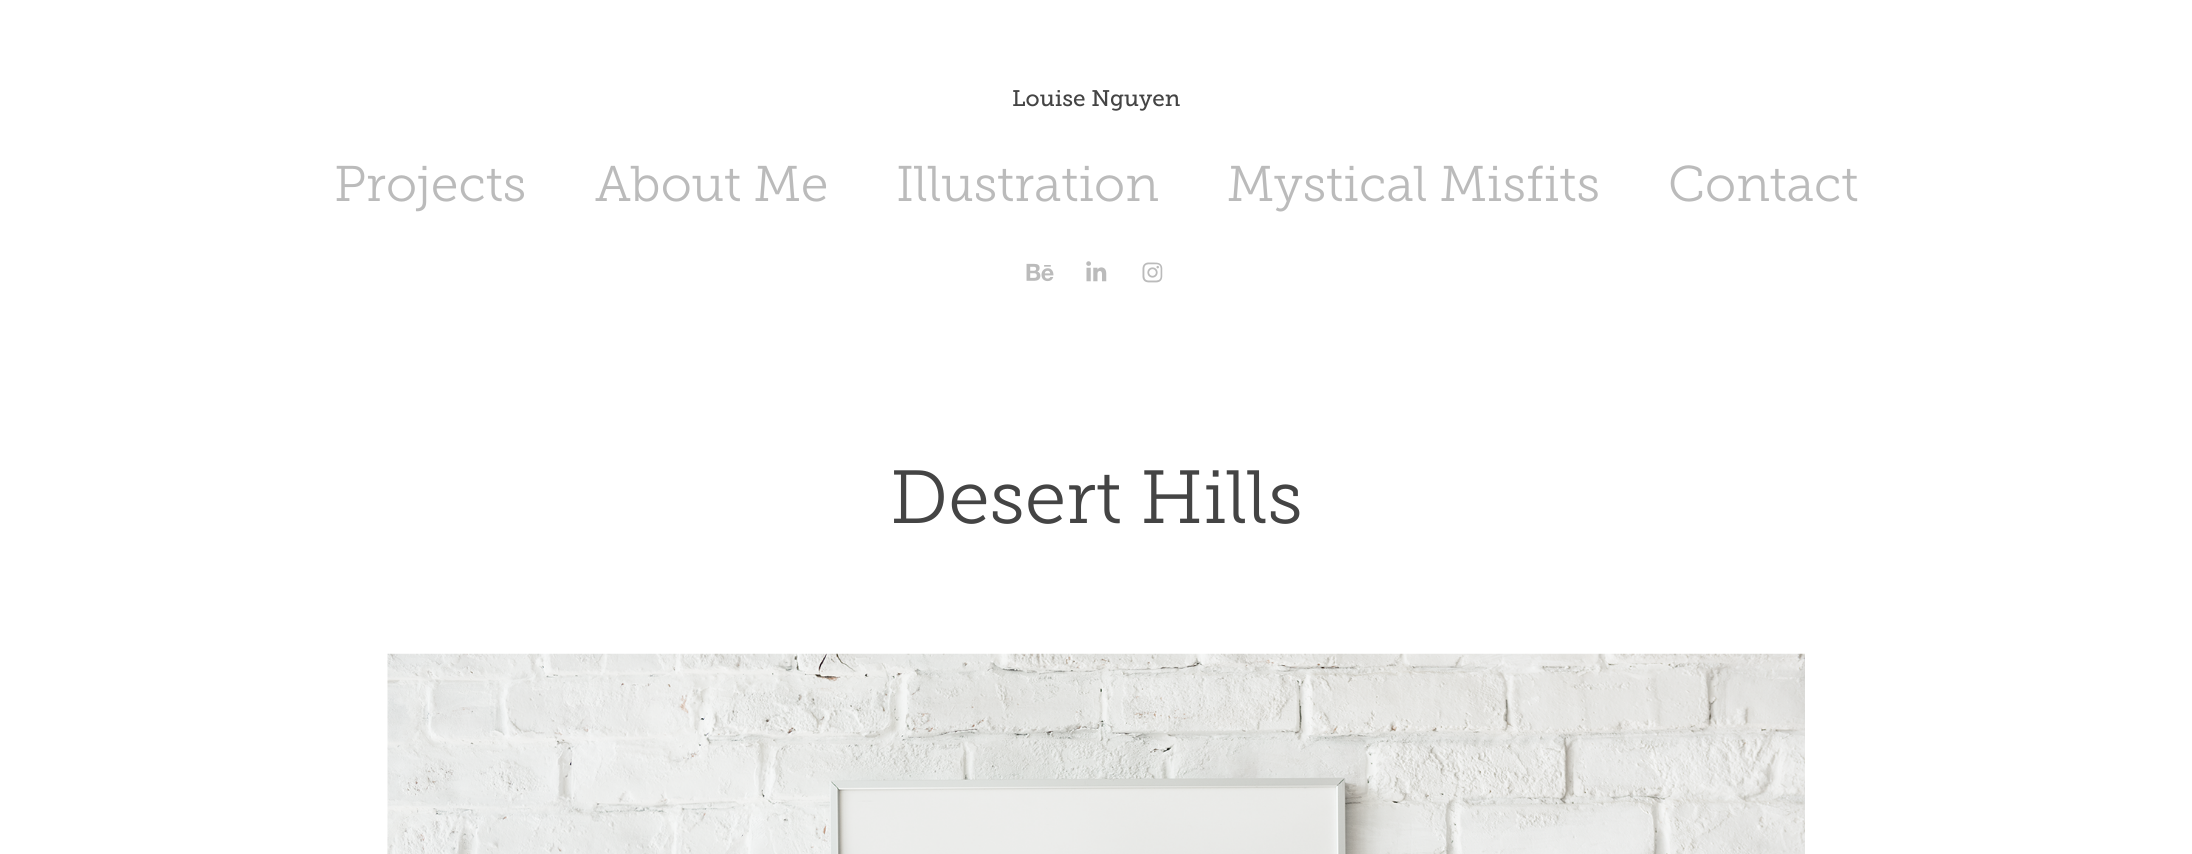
#include <cairo/cairo.h>
#include <math.h>
#include <stddef.h>

static cairo_t *cr;

static void use_color(int r, int g, int b) {
  cairo_set_source_rgb(cr, r / 255.0, g / 255.0, b / 255.0);
}

static void text(double x, double y, const char *s, const char *family, double size, int italic, int bold, int r, int g, int b) {
  cairo_select_font_face(cr, family, italic ? CAIRO_FONT_SLANT_ITALIC : CAIRO_FONT_SLANT_NORMAL,
    bold ? CAIRO_FONT_WEIGHT_BOLD : CAIRO_FONT_WEIGHT_NORMAL);
  cairo_set_font_size(cr, size);
  use_color(r, g, b);
  cairo_move_to(cr, x, y);
  cairo_show_text(cr, s);
}

static void picture(const char *path, double x, double y, double w, double h) {
  cairo_surface_t *image = cairo_image_surface_create_from_png(path);
  cairo_save(cr);
  cairo_set_source_surface(cr, image, x, y);
  cairo_rectangle(cr, x, y, w, h);
  cairo_fill(cr);
  cairo_restore(cr);
  cairo_surface_destroy(image);
}

static void draw(void) {
  use_color(255, 255, 255);
  cairo_paint(cr);
  picture("img_01.png", 1026, 263, 28, 19);
  picture("img_02.png", 1086, 261, 21, 21);
  picture("img_03.png", 1142, 262, 21, 21);
  picture("img_04.png", 387, 653, 1418, 201);
  text(1012, 106, "Louise Nguyen", "Museo Slab", 22.5, 0, 0, 68, 68, 68);
  text(334, 201, "Projects", "Museo Slab Light", 50, 0, 0, 187, 187, 187);
  text(595, 201, "About Me", "Museo Slab Light", 50, 0, 0, 187, 187, 187);
  text(896, 201, "Illustration", "Museo Slab Light", 50, 0, 0, 187, 187, 187);
  text(1227, 201, "Mystical Misfits", "Museo Slab Light", 50, 0, 0, 187, 187, 187);
  text(1668, 201, "Contact", "Museo Slab Light", 50, 0, 0, 187, 187, 187);
  text(890, 523, "Desert Hills", "Museo Slab Light", 75, 0, 0, 68, 68, 68);
}

int main(void) {
  cairo_surface_t *surface = cairo_image_surface_create(CAIRO_FORMAT_RGB24, 2192, 854);
  cr = cairo_create(surface);
  cairo_font_options_t *options = cairo_font_options_create();
  cairo_font_options_set_hint_metrics(options, CAIRO_HINT_METRICS_OFF);
  cairo_font_options_set_hint_style(options, CAIRO_HINT_STYLE_NONE);
  cairo_set_font_options(cr, options);
  cairo_set_miter_limit(cr, 4);
  draw();
  cairo_surface_write_to_png(surface, "out.png");
  cairo_font_options_destroy(options);
  cairo_destroy(cr);
  cairo_surface_destroy(surface);
  return 0;
}
